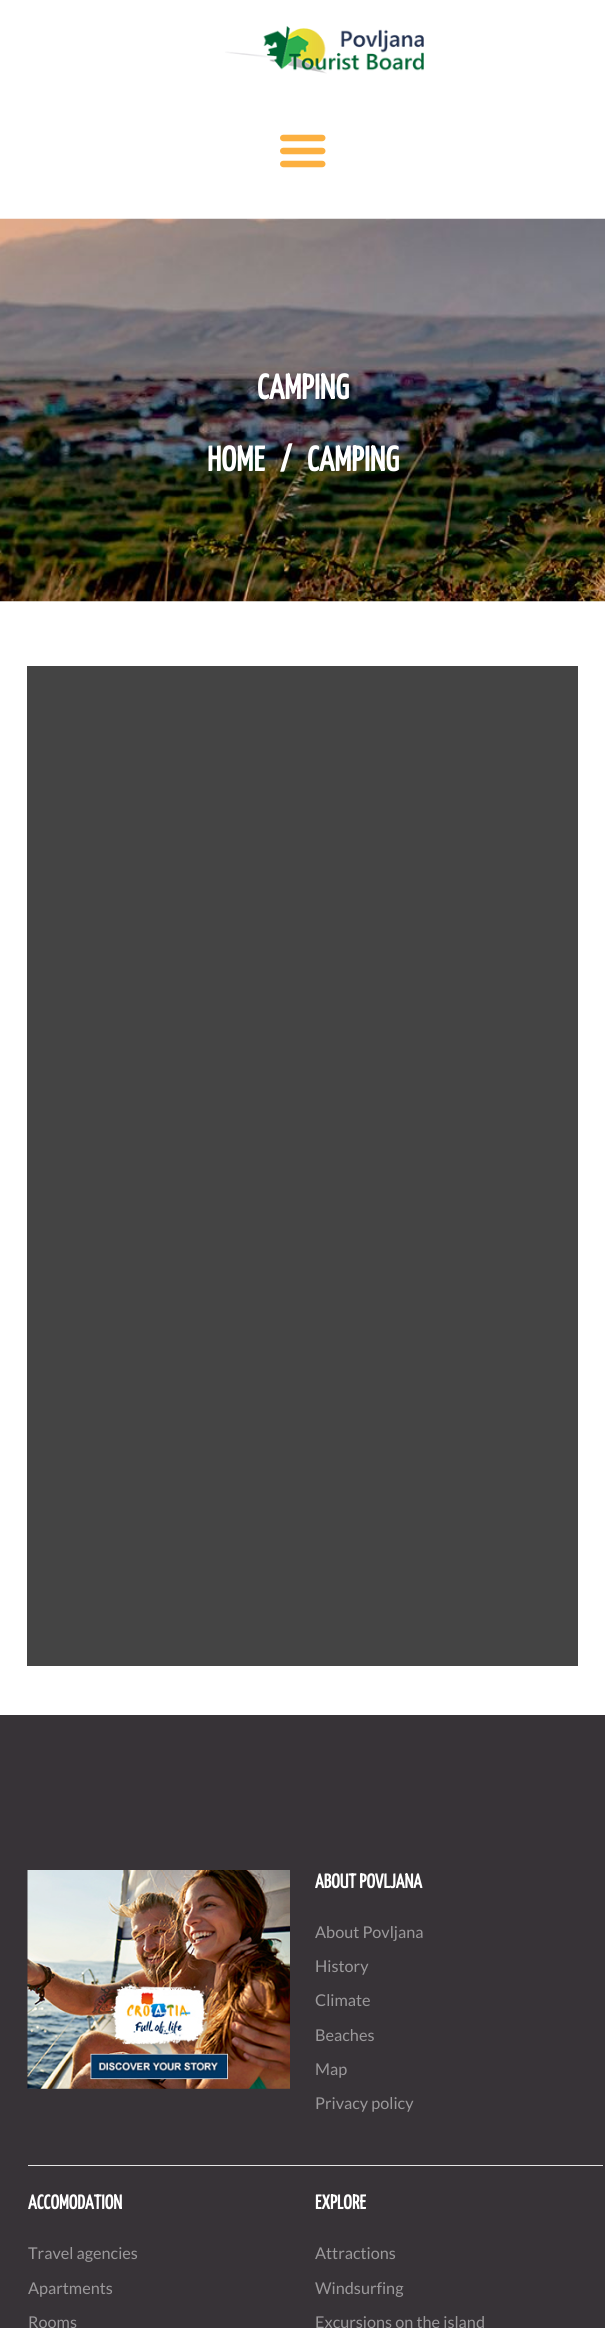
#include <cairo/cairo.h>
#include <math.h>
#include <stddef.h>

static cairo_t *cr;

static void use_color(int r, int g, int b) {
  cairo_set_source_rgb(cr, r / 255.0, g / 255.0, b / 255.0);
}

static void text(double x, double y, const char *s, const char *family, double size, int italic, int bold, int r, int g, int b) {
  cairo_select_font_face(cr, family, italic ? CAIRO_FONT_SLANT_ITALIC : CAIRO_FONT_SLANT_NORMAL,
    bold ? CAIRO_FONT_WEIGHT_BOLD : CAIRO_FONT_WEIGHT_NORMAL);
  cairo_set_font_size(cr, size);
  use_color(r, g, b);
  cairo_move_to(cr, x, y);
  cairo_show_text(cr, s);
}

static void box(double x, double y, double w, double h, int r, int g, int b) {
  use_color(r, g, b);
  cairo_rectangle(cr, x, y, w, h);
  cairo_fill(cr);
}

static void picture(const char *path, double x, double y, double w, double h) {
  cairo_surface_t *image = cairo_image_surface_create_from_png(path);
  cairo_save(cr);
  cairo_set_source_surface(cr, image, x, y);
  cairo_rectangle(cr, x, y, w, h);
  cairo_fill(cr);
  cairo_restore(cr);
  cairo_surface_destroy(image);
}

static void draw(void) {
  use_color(255, 255, 255);
  cairo_paint(cr);
  picture("img_01.png", 225, 26, 199, 48);
  picture("img_02.png", 280, 134, 46, 34);
  picture("img_03.png", 0, 218, 605, 384);
  box(27, 666, 551, 1000, 68, 68, 68);
  box(0, 1715, 605, 613, 55, 51, 55);
  picture("img_04.png", 27, 1870, 263, 219);
  box(28, 2165, 575, 1, 229, 229, 229);
  text(257, 399, "CAMPING", "Yanone Kaffeesatz", 35, 0, 1, 255, 255, 255);
  text(207, 471, "HOME", "Yanone Kaffeesatz", 35, 0, 1, 255, 255, 255);
  text(280, 471, "/", "Yanone Kaffeesatz", 35, 0, 1, 255, 255, 255);
  text(307, 471, "CAMPING", "Yanone Kaffeesatz", 35, 0, 1, 255, 255, 255);
  text(315, 1888, "ABOUT POVLJANA", "Yanone Kaffeesatz", 20, 0, 1, 255, 255, 255);
  text(315, 1938, "About Povljana", "Lato", 16.25, 0, 0, 155, 153, 155);
  text(315, 1972, "History", "Lato", 16.25, 0, 0, 155, 153, 155);
  text(315, 2006, "Climate", "Lato", 16.25, 0, 0, 155, 153, 155);
  text(315, 2041, "Beaches", "Lato", 16.25, 0, 0, 155, 153, 155);
  text(315, 2075, "Map", "Lato", 16.25, 0, 0, 155, 153, 155);
  text(315, 2109, "Privacy policy", "Lato", 16.25, 0, 0, 155, 153, 155);
  text(28, 2209, "ACCOMODATION", "Yanone Kaffeesatz", 20, 0, 1, 255, 255, 255);
  text(28, 2259, "Travel agencies", "Lato", 16.25, 0, 0, 155, 153, 155);
  text(28, 2294, "Apartments", "Lato", 16.25, 0, 0, 155, 153, 155);
  text(28, 2328, "Rooms", "Lato", 16.25, 0, 0, 155, 153, 155);
  text(315, 2209, "EXPLORE", "Yanone Kaffeesatz", 20, 0, 1, 255, 255, 255);
  text(315, 2259, "Attractions", "Lato", 16.25, 0, 0, 155, 153, 155);
  text(315, 2294, "Windsurfing", "Lato", 16.25, 0, 0, 155, 153, 155);
  text(315, 2328, "Excursions on the island", "Lato", 16.25, 0, 0, 155, 153, 155);
}

int main(void) {
  cairo_surface_t *surface = cairo_image_surface_create(CAIRO_FORMAT_RGB24, 605, 2328);
  cr = cairo_create(surface);
  cairo_font_options_t *options = cairo_font_options_create();
  cairo_font_options_set_hint_metrics(options, CAIRO_HINT_METRICS_OFF);
  cairo_font_options_set_hint_style(options, CAIRO_HINT_STYLE_NONE);
  cairo_set_font_options(cr, options);
  cairo_set_miter_limit(cr, 4);
  draw();
  cairo_surface_write_to_png(surface, "out.png");
  cairo_font_options_destroy(options);
  cairo_destroy(cr);
  cairo_surface_destroy(surface);
  return 0;
}
